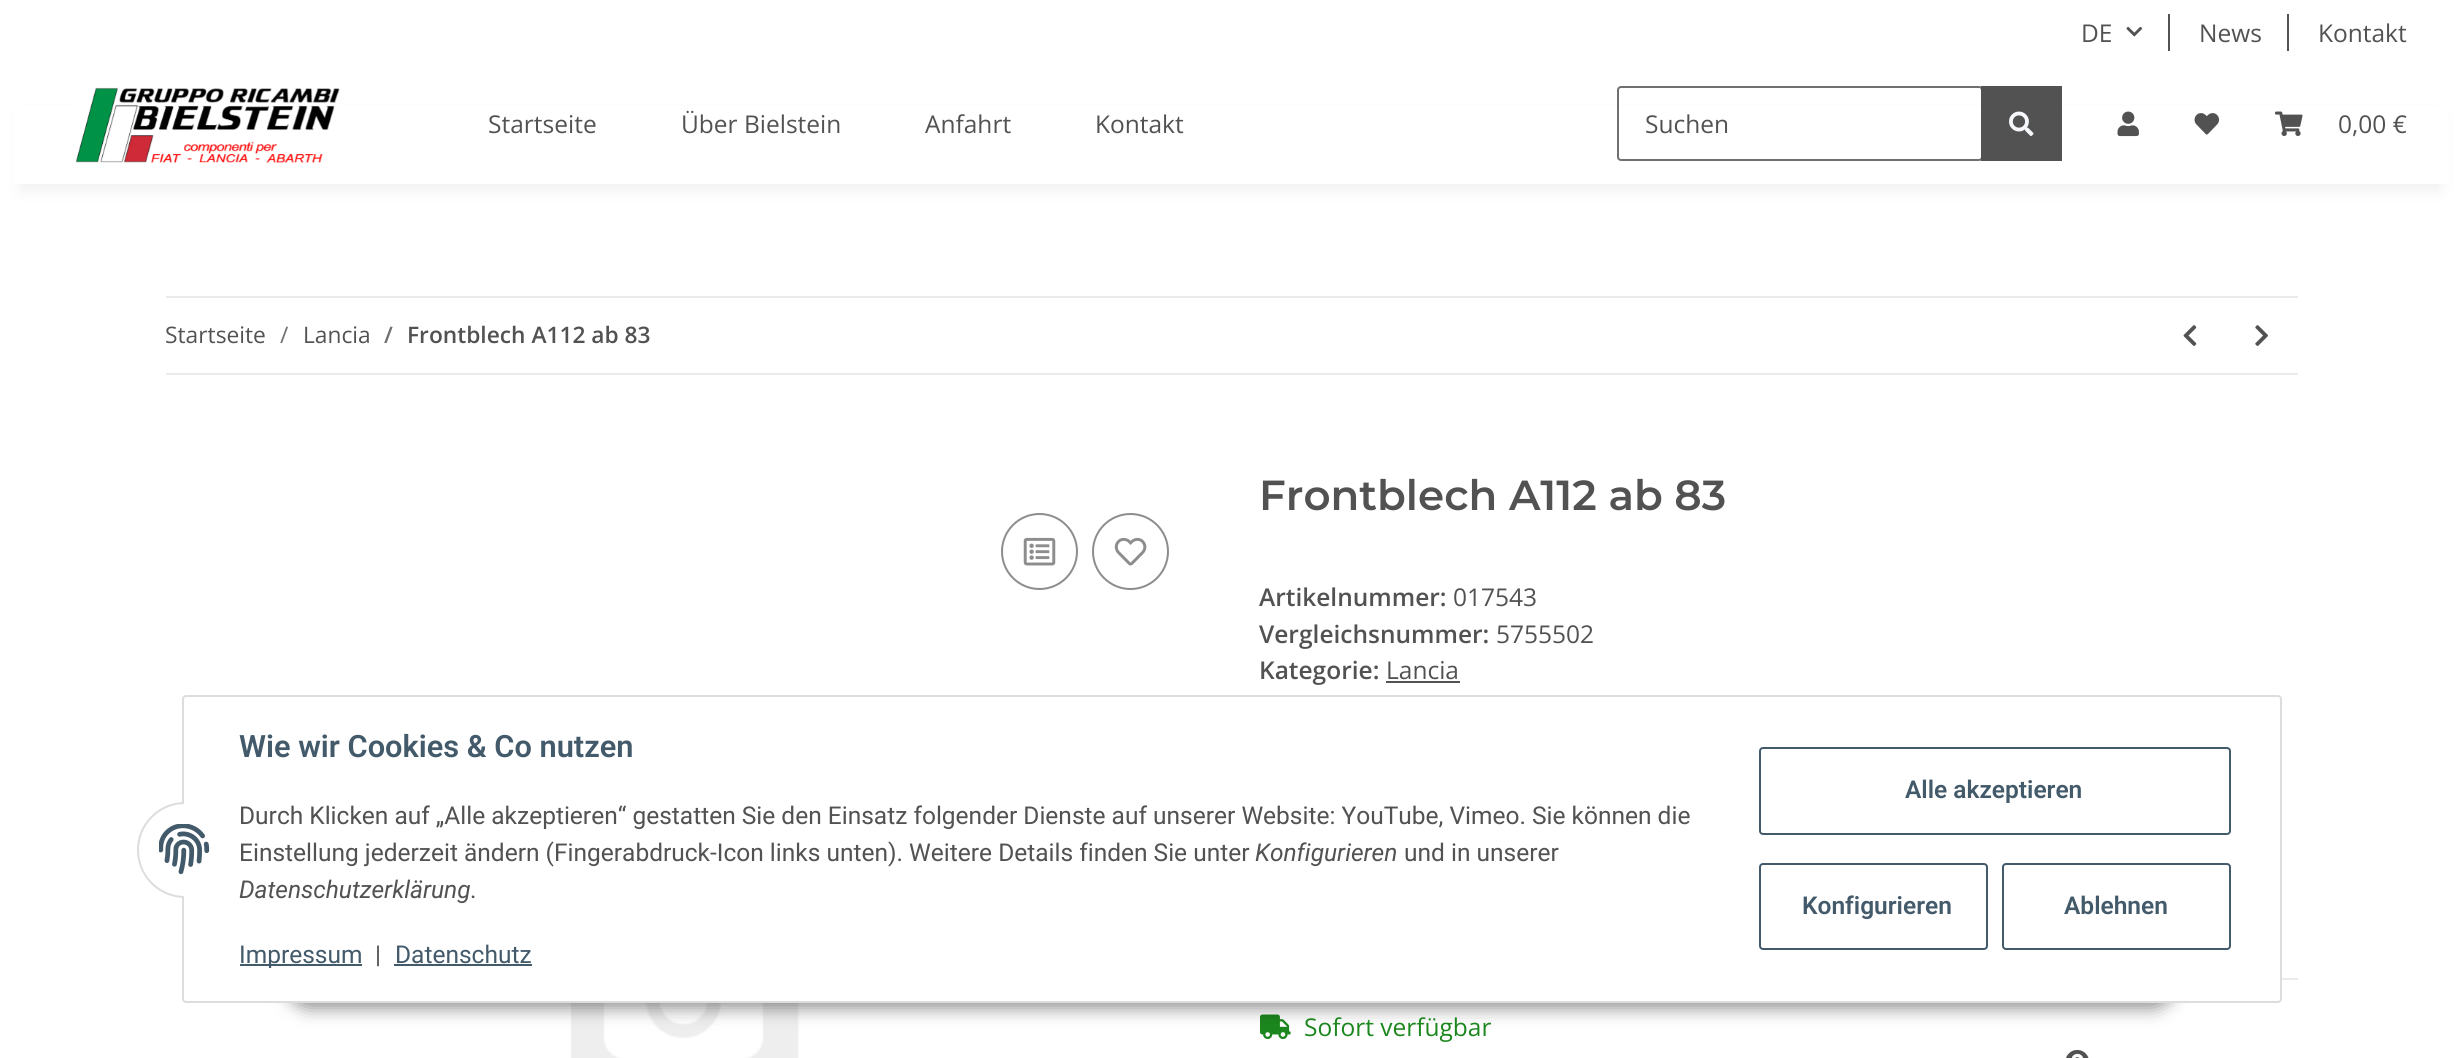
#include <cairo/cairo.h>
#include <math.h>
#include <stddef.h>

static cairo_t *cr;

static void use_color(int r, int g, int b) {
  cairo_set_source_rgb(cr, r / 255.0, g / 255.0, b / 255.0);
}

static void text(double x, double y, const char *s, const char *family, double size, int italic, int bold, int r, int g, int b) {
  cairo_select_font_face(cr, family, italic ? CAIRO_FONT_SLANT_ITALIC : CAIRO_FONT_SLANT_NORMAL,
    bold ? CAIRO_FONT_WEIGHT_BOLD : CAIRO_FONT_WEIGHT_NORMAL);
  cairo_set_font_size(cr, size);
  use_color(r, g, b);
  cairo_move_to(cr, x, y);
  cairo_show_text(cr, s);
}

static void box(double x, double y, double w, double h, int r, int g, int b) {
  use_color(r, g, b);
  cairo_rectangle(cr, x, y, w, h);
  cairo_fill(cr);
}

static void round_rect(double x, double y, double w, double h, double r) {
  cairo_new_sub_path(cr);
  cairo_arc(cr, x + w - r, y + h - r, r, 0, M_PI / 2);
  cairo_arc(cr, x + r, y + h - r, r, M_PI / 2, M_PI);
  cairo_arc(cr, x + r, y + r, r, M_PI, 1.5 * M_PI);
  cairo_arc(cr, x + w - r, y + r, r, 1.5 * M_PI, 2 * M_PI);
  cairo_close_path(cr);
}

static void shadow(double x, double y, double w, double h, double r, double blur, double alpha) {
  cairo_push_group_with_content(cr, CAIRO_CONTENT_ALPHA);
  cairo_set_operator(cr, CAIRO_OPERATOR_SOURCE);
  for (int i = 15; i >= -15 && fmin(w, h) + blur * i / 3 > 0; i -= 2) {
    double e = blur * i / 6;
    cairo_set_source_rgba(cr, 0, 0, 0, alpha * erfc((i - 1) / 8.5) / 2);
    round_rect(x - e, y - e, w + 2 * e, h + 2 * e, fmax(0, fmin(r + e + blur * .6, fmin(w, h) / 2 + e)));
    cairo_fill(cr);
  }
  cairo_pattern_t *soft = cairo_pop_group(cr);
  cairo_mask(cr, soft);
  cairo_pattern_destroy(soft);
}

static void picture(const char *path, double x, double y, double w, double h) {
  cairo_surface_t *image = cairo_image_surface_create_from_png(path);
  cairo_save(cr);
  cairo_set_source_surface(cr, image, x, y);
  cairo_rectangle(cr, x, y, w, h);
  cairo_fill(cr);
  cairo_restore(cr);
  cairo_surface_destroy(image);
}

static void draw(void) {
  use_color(255, 255, 255);
  cairo_paint(cr);
  picture("img_01.png", 2126, 26, 17, 11);
  box(2168, 14, 2, 37, 82, 82, 82);
  box(2287, 14, 2, 37, 82, 82, 82);
  use_color(0, 0, 0);
  shadow(21, 114, 2420, 77, 0, 8, 0.06);
  box(13, 106, 2436, 78, 255, 255, 255);
  picture("img_02.png", 76, 87, 264, 76);
  round_rect(1618, 87, 364, 73, 3);
  use_color(112, 112, 112);
  cairo_stroke(cr);
  box(1981, 86, 81, 75, 82, 82, 82);
  picture("img_03.png", 2009, 111, 25, 25);
  picture("img_04.png", 2117, 111, 22, 26);
  picture("img_05.png", 2194, 113, 26, 22);
  picture("img_06.png", 2275, 111, 28, 25);
  box(166, 296, 2132, 2, 235, 235, 235);
  box(166, 373, 2132, 2, 235, 235, 235);
  picture("img_07.png", 2183, 325, 14, 21);
  picture("img_08.png", 2255, 325, 13, 21);
  cairo_arc(cr, 1039.5, 551.5, 37.5, 0, 2 * M_PI);
  use_color(141, 141, 141);
  cairo_stroke(cr);
  picture("img_09.png", 1023, 537, 33, 29);
  cairo_arc(cr, 1130.5, 551.5, 37.5, 0, 2 * M_PI);
  cairo_stroke(cr);
  picture("img_10.png", 1114, 537, 33, 29);
  picture("img_11.png", 571, 1003, 228, 55);
  box(1386, 681, 74, 2, 82, 82, 82);
  box(2282, 978, 16, 2, 235, 235, 235);
  picture("img_12.png", 1260, 1014, 31, 26);
  picture("img_13.png", 2066, 1049, 23, 9);
  use_color(0, 0, 0);
  shadow(287, 952, 1888, 56, 28, 9, 0.45);
  use_color(255, 255, 255);
  round_rect(183, 696, 2098, 306, 3);
  cairo_fill_preserve(cr);
  use_color(221, 221, 221);
  cairo_stroke(cr);
  use_color(255, 255, 255);
  cairo_arc(cr, 185, 850, 47, 0, 2 * M_PI);
  cairo_fill_preserve(cr);
  use_color(221, 221, 221);
  cairo_stroke(cr);
  box(184, 802, 49, 96, 255, 255, 255);
  picture("img_14.png", 159, 824, 51, 51);
  box(240, 964, 122, 2, 67, 90, 107);
  box(394, 964, 138, 2, 67, 90, 107);
  round_rect(1760, 748, 470, 86, 3);
  cairo_stroke(cr);
  round_rect(1760, 864, 227, 85, 3);
  cairo_stroke(cr);
  round_rect(2003, 864, 227, 85, 3);
  cairo_stroke(cr);
  text(2081, 42, "DE", "Open Sans", 24.5, 0, 0, 82, 82, 82);
  text(2199, 42, "News", "Open Sans", 24.5, 0, 0, 82, 82, 82);
  text(2318, 42, "Kontakt", "Open Sans", 24.5, 0, 0, 82, 82, 82);
  text(488, 133, "Startseite", "Open Sans", 24.5, 0, 0, 82, 82, 82);
  text(681, 133, "Über Bielstein", "Open Sans", 24.5, 0, 0, 82, 82, 82);
  text(925, 133, "Anfahrt", "Open Sans", 24.5, 0, 0, 82, 82, 82);
  text(1095, 133, "Kontakt", "Open Sans", 24.5, 0, 0, 82, 82, 82);
  text(1645, 133, "Suchen", "Open Sans", 24.5, 0, 0, 82, 82, 82);
  text(2338, 133, "0,00 €", "Open Sans", 24.5, 0, 0, 82, 82, 82);
  text(165, 343, "Startseite", "Open Sans", 22.75, 0, 0, 82, 82, 82);
  text(280, 343, "/", "Open Sans", 22.75, 0, 0, 112, 112, 112);
  text(303, 343, "Lancia", "Open Sans", 22.75, 0, 0, 82, 82, 82);
  text(384, 343, "/", "Open Sans SemiBold", 22.75, 0, 0, 112, 112, 112);
  text(407, 343, "Frontblech A112 ab 83", "Open Sans SemiBold", 22.75, 0, 0, 82, 82, 82);
  text(1259, 510, "Frontblech A112 ab 83", "Montserrat SemiBold", 42, 0, 0, 82, 82, 82);
  text(1259, 606, "Artikelnummer:", "Open Sans SemiBold", 24.5, 0, 0, 82, 82, 82);
  text(1453, 606, "017543", "Open Sans", 24.5, 0, 0, 82, 82, 82);
  text(1259, 643, "Vergleichsnummer:", "Open Sans SemiBold", 24.5, 0, 0, 82, 82, 82);
  text(1496, 643, "5755502", "Open Sans", 24.5, 0, 0, 82, 82, 82);
  text(1259, 679, "Kategorie:", "Open Sans SemiBold", 24.5, 0, 0, 82, 82, 82);
  text(1386, 679, "Lancia", "Open Sans", 24.5, 0, 0, 82, 82, 82);
  text(1304, 1036, "Sofort verfügbar", "Open Sans", 24.5, 0, 0, 28, 135, 30);
  text(239, 757, "Wie wir Cookies & Co nutzen", "Roboto SemiBold", 30.75, 0, 0, 67, 90, 107);
  text(239, 824, "Durch Klicken auf „Alle akzeptieren“ gestatten Sie den Einsatz folgender Dienste auf unserer Website: YouTube, Vimeo. Sie können die", "Roboto", 24.5, 0, 0, 82, 82, 82);
  text(239, 861, "Einstellung jederzeit ändern (Fingerabdruck-Icon links unten). Weitere Details finden Sie unter", "Roboto", 24.5, 0, 0, 82, 82, 82);
  text(1255, 861, "Konfigurieren", "Roboto", 24.5, 1, 0, 82, 82, 82);
  text(1404, 861, "und in unserer", "Roboto", 24.5, 0, 0, 82, 82, 82);
  text(239, 898, "Datenschutzerklärung", "Roboto", 24.5, 1, 0, 82, 82, 82);
  text(470, 898, ".", "Roboto", 24.5, 0, 0, 82, 82, 82);
  text(239, 963, "Impressum", "Roboto", 24.5, 0, 0, 67, 90, 107);
  text(375, 963, "|", "Roboto", 24.5, 0, 0, 82, 82, 82);
  text(395, 963, "Datenschutz", "Roboto", 24.5, 0, 0, 67, 90, 107);
  text(1905, 798, "Alle akzeptieren", "Roboto SemiBold", 24.5, 0, 0, 67, 90, 107);
  text(1802, 914, "Konfigurieren", "Roboto SemiBold", 24.5, 0, 0, 67, 90, 107);
  text(2064, 914, "Ablehnen", "Roboto SemiBold", 24.5, 0, 0, 67, 90, 107);
}

int main(void) {
  cairo_surface_t *surface = cairo_image_surface_create(CAIRO_FORMAT_RGB24, 2461, 1058);
  cr = cairo_create(surface);
  cairo_font_options_t *options = cairo_font_options_create();
  cairo_font_options_set_hint_metrics(options, CAIRO_HINT_METRICS_OFF);
  cairo_font_options_set_hint_style(options, CAIRO_HINT_STYLE_NONE);
  cairo_set_font_options(cr, options);
  cairo_set_miter_limit(cr, 4);
  draw();
  cairo_surface_write_to_png(surface, "out.png");
  cairo_font_options_destroy(options);
  cairo_destroy(cr);
  cairo_surface_destroy(surface);
  return 0;
}
